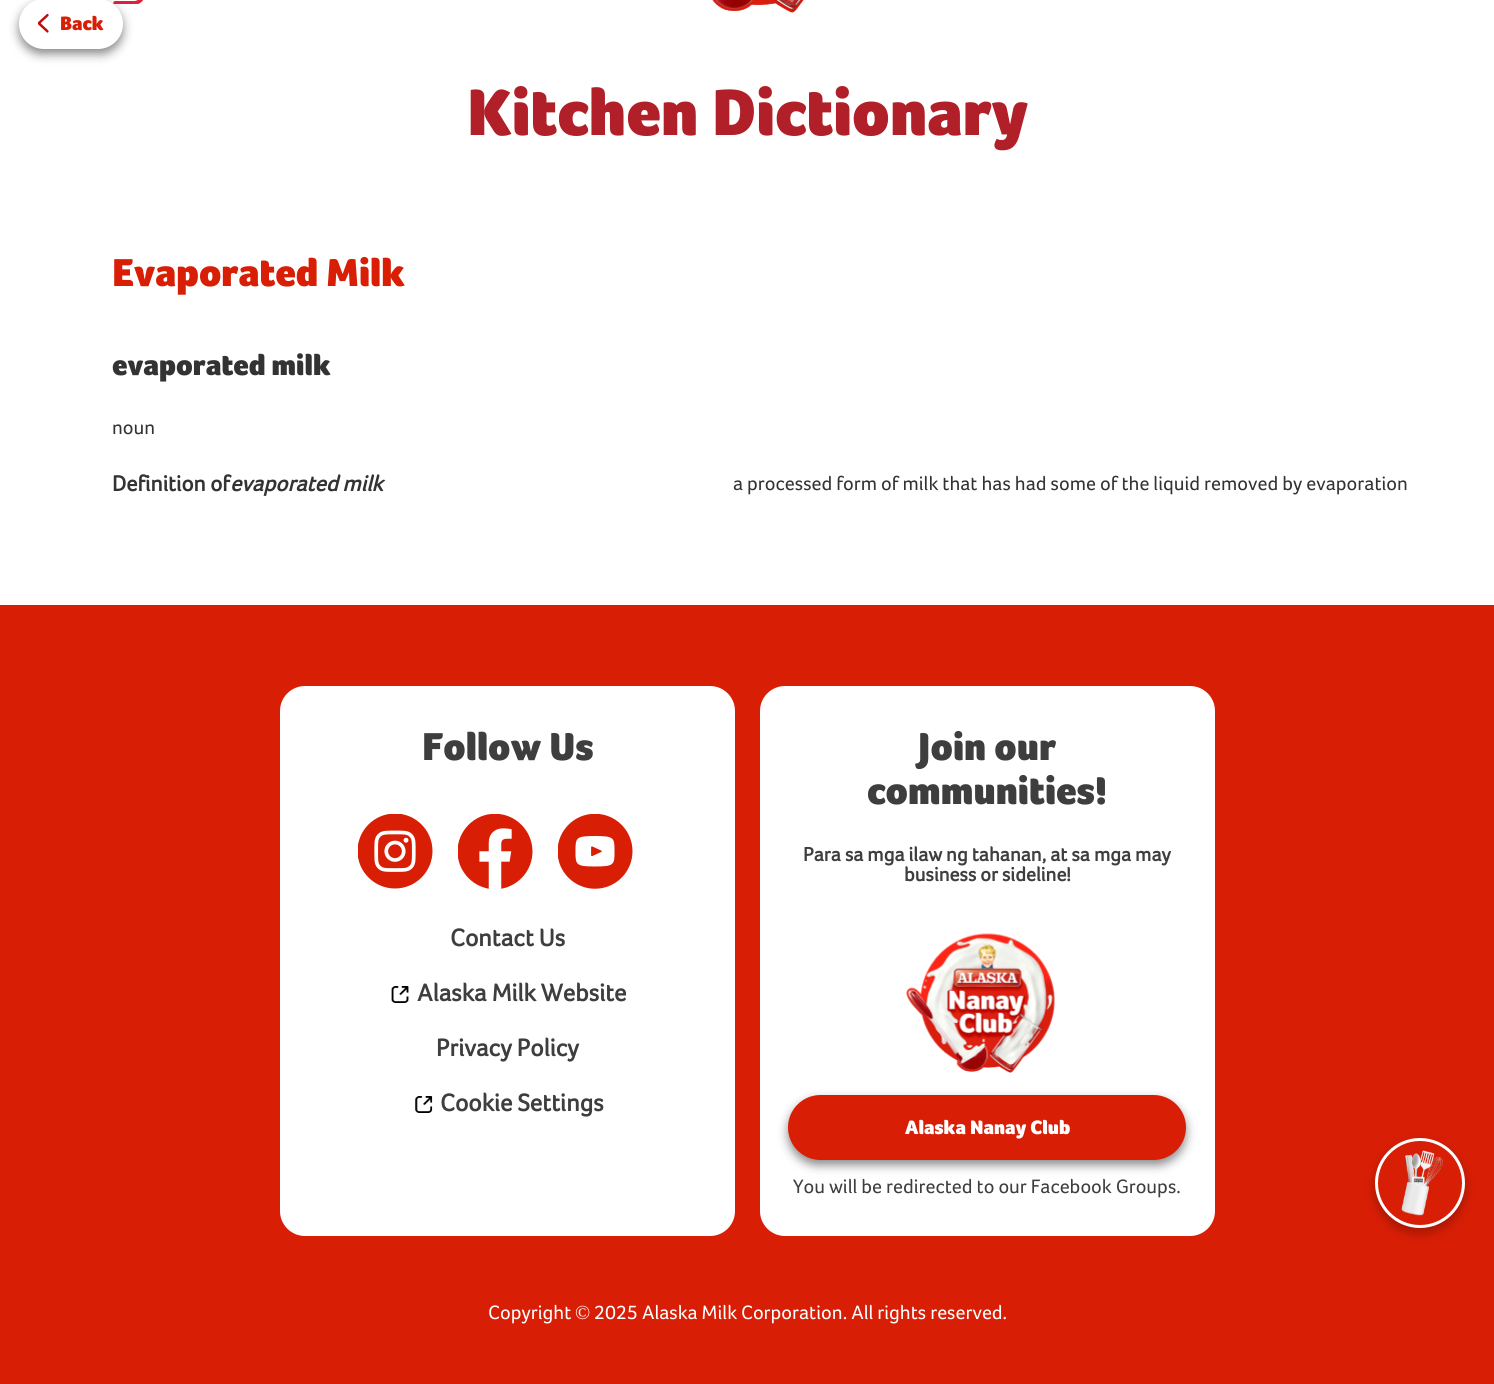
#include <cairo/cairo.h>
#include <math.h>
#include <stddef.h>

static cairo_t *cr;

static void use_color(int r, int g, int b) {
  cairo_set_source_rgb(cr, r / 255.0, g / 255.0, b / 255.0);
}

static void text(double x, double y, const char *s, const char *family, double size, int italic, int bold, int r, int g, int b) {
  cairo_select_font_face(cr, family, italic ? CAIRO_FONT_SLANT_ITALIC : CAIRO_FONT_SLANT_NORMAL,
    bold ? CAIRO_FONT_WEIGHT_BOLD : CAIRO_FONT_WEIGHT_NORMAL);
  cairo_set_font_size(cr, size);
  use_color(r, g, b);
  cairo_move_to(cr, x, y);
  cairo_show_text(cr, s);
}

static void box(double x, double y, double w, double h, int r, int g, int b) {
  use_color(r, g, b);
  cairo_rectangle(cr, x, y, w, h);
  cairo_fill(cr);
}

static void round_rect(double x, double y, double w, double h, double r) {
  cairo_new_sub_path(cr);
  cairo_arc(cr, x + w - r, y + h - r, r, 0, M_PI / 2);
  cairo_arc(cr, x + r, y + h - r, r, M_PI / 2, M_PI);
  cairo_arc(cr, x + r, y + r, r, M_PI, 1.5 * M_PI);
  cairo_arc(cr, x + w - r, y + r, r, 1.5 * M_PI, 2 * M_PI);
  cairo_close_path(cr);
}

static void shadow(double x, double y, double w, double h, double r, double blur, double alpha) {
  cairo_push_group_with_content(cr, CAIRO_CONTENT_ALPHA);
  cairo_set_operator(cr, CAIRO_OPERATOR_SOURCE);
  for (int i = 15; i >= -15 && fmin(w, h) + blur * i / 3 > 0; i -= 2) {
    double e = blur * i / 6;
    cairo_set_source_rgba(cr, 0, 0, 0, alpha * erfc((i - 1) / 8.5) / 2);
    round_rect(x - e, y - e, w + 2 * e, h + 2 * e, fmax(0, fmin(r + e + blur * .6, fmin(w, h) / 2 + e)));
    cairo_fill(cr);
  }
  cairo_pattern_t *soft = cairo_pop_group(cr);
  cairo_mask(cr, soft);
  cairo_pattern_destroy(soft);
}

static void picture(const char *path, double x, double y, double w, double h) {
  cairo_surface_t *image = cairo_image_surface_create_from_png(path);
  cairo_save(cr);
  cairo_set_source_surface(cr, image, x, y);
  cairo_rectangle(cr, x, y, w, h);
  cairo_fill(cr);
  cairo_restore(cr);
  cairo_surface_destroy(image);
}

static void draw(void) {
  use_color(255, 255, 255);
  cairo_paint(cr);
  picture("img_01.png", 712, 0, 92, 13);
  picture("img_03.png", 113, 0, 30, 4);
  use_color(77, 77, 77);
  shadow(19, 4, 104, 50, 25, 5, 0.66);
  use_color(255, 255, 255);
  round_rect(19, -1, 104, 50, 25);
  cairo_fill(cr);
  picture("img_02.png", 38, 13, 11, 20);
  box(0, 605, 1494, 779, 216, 30, 5);
  use_color(255, 255, 255);
  round_rect(280, 686, 455, 550, 25);
  cairo_fill(cr);
  picture("img_04.png", 358, 814, 75, 75);
  picture("img_05.png", 458, 814, 75, 75);
  picture("img_06.png", 558, 814, 75, 75);
  picture("img_07.png", 391, 986, 18, 17);
  picture("img_08.png", 415, 1096, 18, 17);
  round_rect(760, 686, 455, 550, 25);
  cairo_fill(cr);
  picture("img_09.png", 906, 933, 149, 140);
  use_color(77, 77, 77);
  shadow(788, 1100, 398, 65, 32.5, 5, 0.66);
  use_color(216, 30, 5);
  round_rect(788, 1095, 398, 65, 32.5);
  cairo_fill(cr);
  use_color(0, 0, 0);
  shadow(1375, 1143, 90, 90, 45, 5, 0.25);
  use_color(216, 30, 5);
  cairo_arc(cr, 1420, 1183, 43.5, 0, 2 * M_PI);
  cairo_fill_preserve(cr);
  use_color(255, 255, 255);
  cairo_set_line_width(cr, 3);
  cairo_stroke(cr);
  picture("img_10.png", 1401, 1150, 42, 66);
  text(60, 30, "Back", "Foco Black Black", 20, 0, 0, 216, 30, 5);
  text(467, 135, "Kitchen Dictionary", "Foco Black Black", 67.5, 0, 0, 177, 32, 40);
  text(112, 286, "Evaporated Milk", "Foco Black Black", 40, 0, 0, 216, 30, 5);
  text(112, 375, "evaporated milk", "Foco Black Black", 30, 0, 0, 51, 51, 51);
  text(112, 434, "noun", "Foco", 20, 0, 0, 51, 51, 51);
  text(112, 491, "Definition of", "Foco", 22.5, 0, 1, 51, 51, 51);
  text(230, 491, "evaporated milk", "Foco", 22.5, 1, 1, 51, 51, 51);
  text(733, 490, "a processed form of milk that has had some of the liquid removed by evaporation", "Foco", 20, 0, 0, 51, 51, 51);
  text(422, 760, "Follow Us", "Foco Black Black", 40, 0, 0, 62, 62, 62);
  text(450, 946, "Contact Us", "Foco", 25, 0, 1, 62, 62, 62);
  text(417, 1001, "Alaska Milk Website", "Foco", 25, 0, 1, 62, 62, 62);
  text(436, 1056, "Privacy Policy", "Foco", 25, 0, 1, 62, 62, 62);
  text(440, 1111, "Cookie Settings", "Foco", 25, 0, 1, 62, 62, 62);
  text(918, 760, "Join our", "Foco Black Black", 40, 0, 0, 62, 62, 62);
  text(867, 804, "communities!", "Foco Black Black", 40, 0, 0, 62, 62, 62);
  text(803, 861, "Para sa mga ilaw ng tahanan, at sa mga may", "Foco", 20, 0, 1, 62, 62, 62);
  text(904, 881, "business or sideline!", "Foco", 20, 0, 1, 62, 62, 62);
  text(905, 1134, "Alaska Nanay Club", "Foco Black Black", 20, 0, 0, 255, 255, 255);
  text(793, 1193, "You will be redirected to our Facebook Groups.", "Foco", 20, 0, 0, 62, 62, 62);
  text(488, 1319, "Copyright", "Foco", 20, 0, 0, 255, 255, 255);
  text(575, 1319, "©", "Liberation Serif", 20, 0, 0, 255, 255, 255);
  text(594, 1319, "2025 Alaska Milk Corporation. All rights reserved.", "Foco", 20, 0, 0, 255, 255, 255);
}

int main(void) {
  cairo_surface_t *surface = cairo_image_surface_create(CAIRO_FORMAT_RGB24, 1494, 1384);
  cr = cairo_create(surface);
  cairo_font_options_t *options = cairo_font_options_create();
  cairo_font_options_set_hint_metrics(options, CAIRO_HINT_METRICS_OFF);
  cairo_font_options_set_hint_style(options, CAIRO_HINT_STYLE_NONE);
  cairo_set_font_options(cr, options);
  cairo_set_miter_limit(cr, 4);
  draw();
  cairo_surface_write_to_png(surface, "out.png");
  cairo_font_options_destroy(options);
  cairo_destroy(cr);
  cairo_surface_destroy(surface);
  return 0;
}
